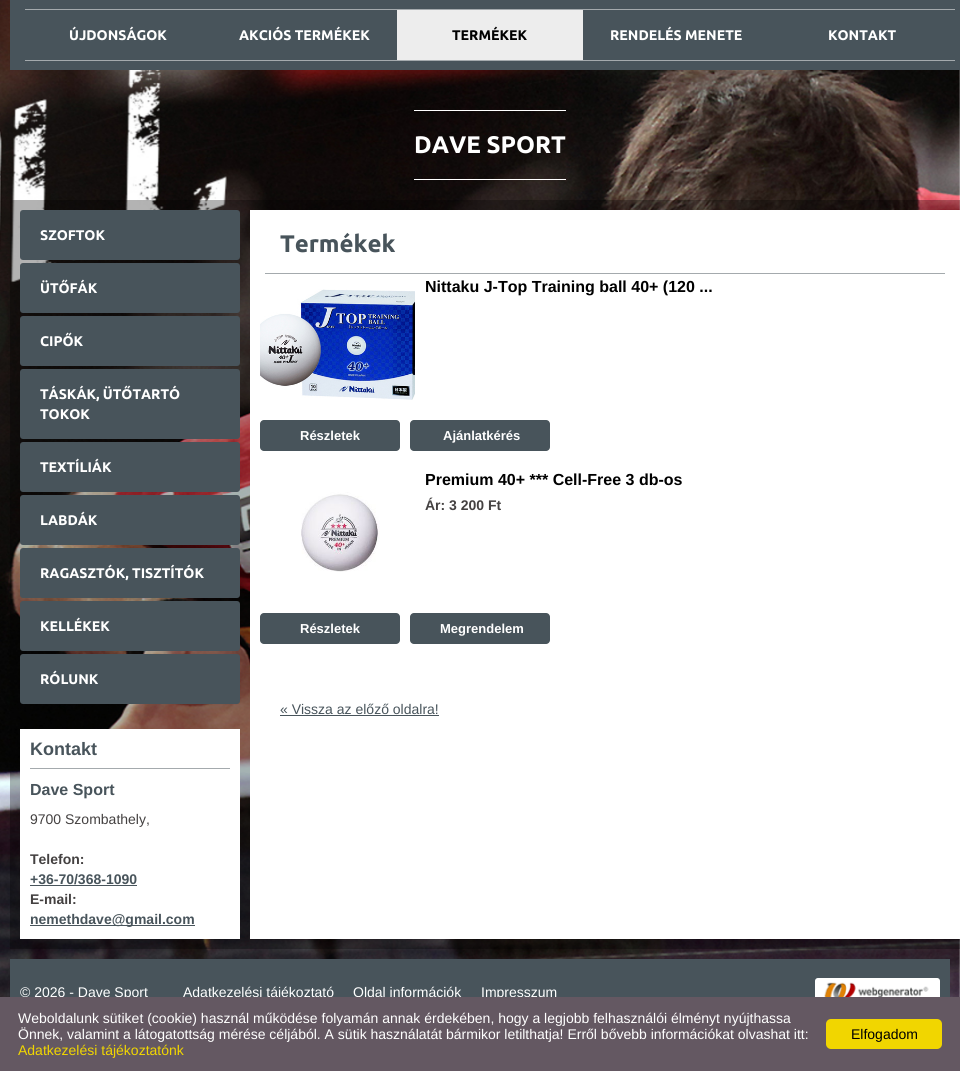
#include <cairo/cairo.h>
#include <math.h>
#include <stddef.h>

static cairo_t *cr;

static void use_color(int r, int g, int b) {
  cairo_set_source_rgb(cr, r / 255.0, g / 255.0, b / 255.0);
}

static void text(double x, double y, const char *s, const char *family, double size, int italic, int bold, int r, int g, int b) {
  cairo_select_font_face(cr, family, italic ? CAIRO_FONT_SLANT_ITALIC : CAIRO_FONT_SLANT_NORMAL,
    bold ? CAIRO_FONT_WEIGHT_BOLD : CAIRO_FONT_WEIGHT_NORMAL);
  cairo_set_font_size(cr, size);
  use_color(r, g, b);
  cairo_move_to(cr, x, y);
  cairo_show_text(cr, s);
}

static void box(double x, double y, double w, double h, int r, int g, int b) {
  use_color(r, g, b);
  cairo_rectangle(cr, x, y, w, h);
  cairo_fill(cr);
}

static void round_rect(double x, double y, double w, double h, double r) {
  cairo_new_sub_path(cr);
  cairo_arc(cr, x + w - r, y + h - r, r, 0, M_PI / 2);
  cairo_arc(cr, x + r, y + h - r, r, M_PI / 2, M_PI);
  cairo_arc(cr, x + r, y + r, r, M_PI, 1.5 * M_PI);
  cairo_arc(cr, x + w - r, y + r, r, 1.5 * M_PI, 2 * M_PI);
  cairo_close_path(cr);
}

static void picture(const char *path, double x, double y, double w, double h) {
  cairo_surface_t *image = cairo_image_surface_create_from_png(path);
  cairo_save(cr);
  cairo_set_source_surface(cr, image, x, y);
  cairo_rectangle(cr, x, y, w, h);
  cairo_fill(cr);
  cairo_restore(cr);
  cairo_surface_destroy(image);
}

static void draw(void) {
  use_color(255, 255, 255);
  cairo_paint(cr);
  picture("img_01.png", 0, 0, 960, 997);
  box(10, 0, 950, 70, 72, 84, 91);
  box(25, 9, 930, 1, 164, 170, 173);
  box(25, 60, 930, 1, 164, 170, 173);
  box(397, 10, 186, 50, 237, 237, 237);
  box(414, 110, 152, 1, 255, 255, 255);
  box(414, 179, 152, 1, 255, 255, 255);
  cairo_set_source_rgba(cr, 0, 0, 0, 0.3);
  cairo_rectangle(cr, 10, 200, 950, 749);
  cairo_fill(cr);
  use_color(72, 84, 91);
  round_rect(20, 210, 220, 50, 3);
  cairo_fill(cr);
  round_rect(20, 263, 220, 50, 3);
  cairo_fill(cr);
  round_rect(20, 316, 220, 50, 3);
  cairo_fill(cr);
  round_rect(20, 369, 220, 70, 3);
  cairo_fill(cr);
  round_rect(20, 442, 220, 50, 3);
  cairo_fill(cr);
  round_rect(20, 495, 220, 50, 3);
  cairo_fill(cr);
  round_rect(20, 548, 220, 50, 3);
  cairo_fill(cr);
  round_rect(20, 601, 220, 50, 3);
  cairo_fill(cr);
  round_rect(20, 654, 220, 50, 3);
  cairo_fill(cr);
  box(20, 729, 220, 210, 255, 255, 255);
  box(30, 768, 200, 1, 164, 170, 173);
  box(30, 885, 107, 1, 72, 84, 91);
  box(30, 925, 165, 1, 72, 84, 91);
  box(250, 210, 710, 729, 255, 255, 255);
  box(265, 273, 680, 1, 164, 170, 173);
  picture("img_02.png", 260, 289, 155, 111);
  use_color(72, 84, 91);
  round_rect(260, 420, 140, 31, 4);
  cairo_fill(cr);
  round_rect(410, 420, 140, 31, 4);
  cairo_fill(cr);
  picture("img_03.png", 301, 492, 79, 80);
  round_rect(260, 613, 140, 31, 4);
  cairo_fill(cr);
  round_rect(410, 613, 140, 31, 4);
  cairo_fill(cr);
  box(280, 715, 159, 1, 72, 84, 91);
  box(10, 959, 940, 38, 72, 84, 91);
  picture("img_04.png", 815, 978, 125, 19);
  text(69, 40, "ÚJDONSÁGOK", "Ubuntu", 14, 0, 1, 255, 255, 255);
  text(239, 40, "AKCIÓS TERMÉKEK", "Ubuntu", 14, 0, 1, 255, 255, 255);
  text(452, 40, "TERMÉKEK", "Ubuntu", 14, 0, 1, 0, 0, 0);
  text(610, 40, "RENDELÉS MENETE", "Ubuntu", 14, 0, 1, 255, 255, 255);
  text(828, 40, "KONTAKT", "Ubuntu", 14, 0, 1, 255, 255, 255);
  text(414, 153, "DAVE SPORT", "Ubuntu", 24, 0, 1, 255, 255, 255);
  text(40, 240, "SZOFTOK", "Ubuntu", 14, 0, 1, 255, 255, 255);
  text(40, 293, "ÜTŐFÁK", "Ubuntu", 14, 0, 1, 255, 255, 255);
  text(40, 346, "CIPŐK", "Ubuntu", 14, 0, 1, 255, 255, 255);
  text(40, 399, "TÁSKÁK, ÜTŐTARTÓ", "Ubuntu", 14, 0, 1, 255, 255, 255);
  text(40, 419, "TOKOK", "Ubuntu", 14, 0, 1, 255, 255, 255);
  text(40, 472, "TEXTÍLIÁK", "Ubuntu", 14, 0, 1, 255, 255, 255);
  text(40, 525, "LABDÁK", "Ubuntu", 14, 0, 1, 255, 255, 255);
  text(40, 578, "RAGASZTÓK, TISZTÍTÓK", "Ubuntu", 14, 0, 1, 255, 255, 255);
  text(40, 631, "KELLÉKEK", "Ubuntu", 14, 0, 1, 255, 255, 255);
  text(40, 684, "RÓLUNK", "Ubuntu", 14, 0, 1, 255, 255, 255);
  text(30, 755, "Kontakt", "Liberation Sans", 18, 0, 1, 72, 84, 91);
  text(30, 795, "Dave Sport", "Liberation Sans", 16, 0, 1, 72, 84, 91);
  text(30, 824, "9700 Szombathely,", "Liberation Sans", 14, 0, 0, 68, 65, 65);
  text(30, 864, "Telefon:", "Liberation Sans", 14, 0, 1, 68, 65, 65);
  text(30, 884, "+36-70/368-1090", "Liberation Sans", 14, 0, 1, 72, 84, 91);
  text(30, 904, "E-mail:", "Liberation Sans", 14, 0, 1, 68, 65, 65);
  text(30, 924, "nemethdave@gmail.com", "Liberation Sans", 14, 0, 1, 72, 84, 91);
  text(280, 252, "Termékek", "Ubuntu", 24, 0, 1, 72, 84, 91);
  text(425, 292, "Nittaku J-Top Training ball 40+ (120 ...", "Liberation Sans", 16, 0, 1, 0, 0, 0);
  text(300, 440, "Részletek", "Liberation Sans", 13, 0, 1, 255, 255, 255);
  text(443, 440, "Ajánlatkérés", "Liberation Sans", 13, 0, 1, 255, 255, 255);
  text(425, 485, "Premium 40+ *** Cell-Free 3 db-os", "Liberation Sans", 16, 0, 1, 0, 0, 0);
  text(425, 510, "Ár: 3 200 Ft", "Liberation Sans", 14, 0, 1, 68, 65, 65);
  text(300, 633, "Részletek", "Liberation Sans", 13, 0, 1, 255, 255, 255);
  text(440, 633, "Megrendelem", "Liberation Sans", 13, 0, 1, 255, 255, 255);
  text(280, 714, "« Vissza az előző oldalra!", "Liberation Sans", 14, 0, 0, 72, 84, 91);
  text(20, 997, "© 2026 - Dave Sport", "Liberation Sans", 14, 0, 0, 255, 255, 255);
  text(183, 997, "Adatkezelési tájékoztató", "Liberation Sans", 14, 0, 0, 255, 255, 255);
  text(353, 997, "Oldal információk", "Liberation Sans", 14, 0, 0, 255, 255, 255);
  text(481, 997, "Impresszum", "Liberation Sans", 14, 0, 0, 255, 255, 255);
  box(0, 997, 960, 74, 100, 88, 98);
  text(18, 1023, "Weboldalunk sütiket (cookie) használ működése folyamán annak érdekében, hogy a legjobb felhasználói élményt nyújthassa", "Liberation Sans", 14, 0, 0, 255, 255, 255);
  text(18, 1039, "Önnek, valamint a látogatottság mérése céljából. A sütik használatát bármikor letilthatja! Erről bővebb információkat olvashat itt:", "Liberation Sans", 14, 0, 0, 255, 255, 255);
  text(18, 1055, "Adatkezelési tájékoztatónk", "Liberation Sans", 14, 0, 0, 241, 214, 0);
  round_rect(826, 1019, 116, 30, 5);
  cairo_fill(cr);
  text(851, 1039, "Elfogadom", "Liberation Sans", 14, 0, 0, 0, 0, 0);
}

int main(void) {
  cairo_surface_t *surface = cairo_image_surface_create(CAIRO_FORMAT_RGB24, 960, 1071);
  cr = cairo_create(surface);
  cairo_font_options_t *options = cairo_font_options_create();
  cairo_font_options_set_hint_metrics(options, CAIRO_HINT_METRICS_OFF);
  cairo_font_options_set_hint_style(options, CAIRO_HINT_STYLE_NONE);
  cairo_set_font_options(cr, options);
  cairo_set_miter_limit(cr, 4);
  draw();
  cairo_surface_write_to_png(surface, "out.png");
  cairo_font_options_destroy(options);
  cairo_destroy(cr);
  cairo_surface_destroy(surface);
  return 0;
}
